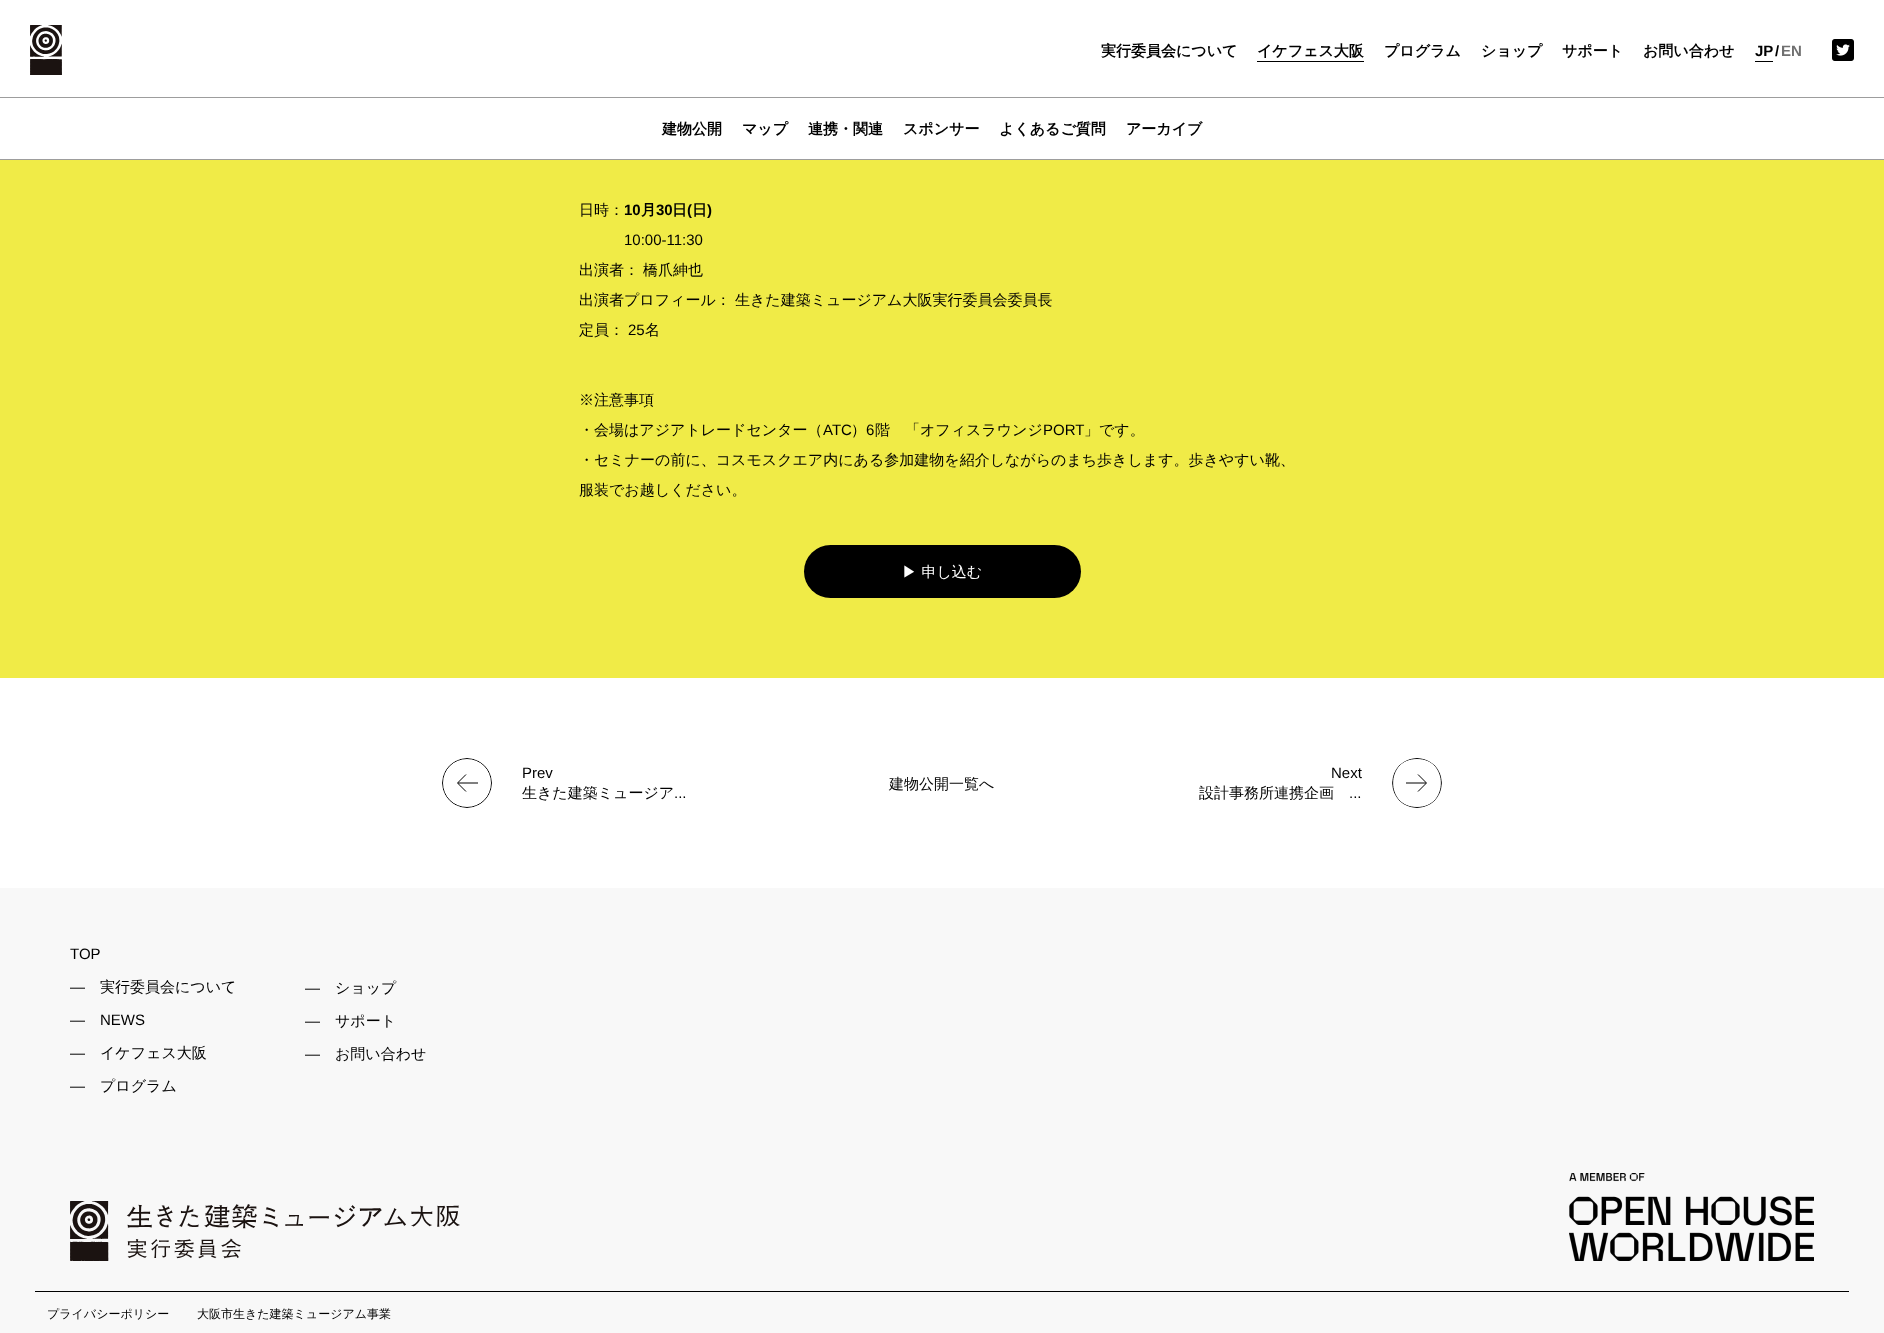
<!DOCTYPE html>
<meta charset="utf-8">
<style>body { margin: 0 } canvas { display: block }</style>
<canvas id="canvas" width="1884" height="1333"></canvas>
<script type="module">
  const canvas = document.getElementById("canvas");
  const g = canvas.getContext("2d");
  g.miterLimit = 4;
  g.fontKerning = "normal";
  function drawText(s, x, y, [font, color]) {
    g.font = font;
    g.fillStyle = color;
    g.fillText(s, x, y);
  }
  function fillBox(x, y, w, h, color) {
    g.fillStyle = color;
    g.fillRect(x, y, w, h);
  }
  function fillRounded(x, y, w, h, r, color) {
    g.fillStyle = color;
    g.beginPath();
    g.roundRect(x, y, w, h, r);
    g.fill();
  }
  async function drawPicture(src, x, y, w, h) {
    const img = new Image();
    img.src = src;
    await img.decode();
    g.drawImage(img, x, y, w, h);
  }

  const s1 = ["bold 15px WenQuanYi Zen Hei", "#000000"];
  const s2 = ["bold 15px Liberation Sans", "#000000"];
  const s3 = ["bold 15px Liberation Sans", "#707070"];
  const s4 = ["500 15px WenQuanYi Zen Hei", "#000000"];
  const s5 = ["15px Liberation Sans", "#000000"];
  const s6 = ["500 15px WenQuanYi Zen Hei", "#FFFFFF"];
  const s7 = ["500 12px WenQuanYi Zen Hei", "#000000"];

  fillBox(0, 0, 1884, 1333, "#F0EB47");
  fillBox(0, 0, 1884, 159, "#FFFFFF");
  await drawPicture("pic1.png", 30, 25, 32, 50);
  drawText("実行委員会について", 1101, 56, s1);
  drawText("イケフェス大阪", 1257, 56, s1);
  fillBox(1257, 61, 107, 1, "#000000");
  drawText("プログラム", 1384, 56, s1);
  drawText("ショップ", 1481, 56, s1);
  drawText("サポート", 1562, 56, s1);
  drawText("お問い合わせ", 1643, 56, s1);
  drawText("JP", 1755, 56, s2);
  fillBox(1755, 61, 18, 1, "#000000");
  drawText("/", 1775, 56, s2);
  drawText("EN", 1781, 56, s3);
  await drawPicture("pic2.png", 1832, 39, 22, 22);
  fillBox(0, 97, 1884, 1, "#9D9D9D");
  fillBox(0, 159, 1884, 1, "#9D9D9D");
  drawText("建物公開", 662, 134, s1);
  drawText("マップ", 742, 134, s1);
  drawText("連携・関連", 808, 134, s1);
  drawText("スポンサー", 903, 134, s1);
  drawText("よくあるご質問", 999, 134, s1);
  drawText("アーカイブ", 1126, 134, s1);
  drawText("日時：", 579, 215, s4);
  drawText("10", 624, 215, s2);
  drawText("月", 641, 215, s1);
  drawText("30", 656, 215, s2);
  drawText("日", 672, 215, s1);
  drawText("(", 687, 215, s2);
  drawText("日", 692, 215, s1);
  drawText(")", 707, 215, s2);
  drawText("10:00-11:30", 624, 245, s5);
  drawText("出演者：", 579, 275, s4);
  drawText("橋爪紳也", 643, 275, s4);
  drawText("出演者プロフィール：", 579, 305, s4);
  drawText("生きた建築ミュージアム大阪実行委員会委員長", 735, 305, s4);
  drawText("定員：", 579, 335, s4);
  drawText("25", 628, 335, s5);
  drawText("名", 645, 335, s4);
  drawText("※注意事項", 579, 405, s4);
  drawText("・会場はアジアトレードセンター（", 579, 435, s4);
  drawText("ATC", 823, 435, s5);
  drawText("）", 851, 435, s4);
  drawText("6", 866, 435, s5);
  drawText("階　「オフィスラウンジ", 875, 435, s4);
  drawText("PORT", 1043, 435, s5);
  drawText("」です。", 1084, 435, s4);
  drawText("・セミナーの前に、コスモスクエア内にある参加建物を紹介しながらのまち歩きします。歩きやすい靴、", 579, 465, s4);
  drawText("服装でお越しください。", 579, 495, s4);
  fillRounded(804, 545, 277, 53, 26.5, "#000000");
  drawText("▶ 申し込む", 902, 577, s6);
  fillBox(0, 678, 1884, 210, "#FFFFFF");
  g.fillStyle = "#F8F8F8";
  g.beginPath();
  g.moveTo(491, 790);
  g.bezierCurveTo(492.5, 785.5, 492.5, 780.5, 491, 776);
  g.closePath();
  g.fill();
  g.save();
  g.beginPath();
  g.roundRect(442, 758, 50, 50, 25);
  g.clip();
  g.beginPath();
  g.arc(467, 783, 24.5, 0, Math.PI * 2);
  g.strokeStyle = "#000000";
  g.stroke();
  g.restore();
  g.beginPath();
  g.moveTo(466, 774.5);
  g.lineTo(457.5, 783);
  g.lineTo(466, 791.5);
  g.moveTo(478, 783);
  g.lineTo(458, 783);
  g.strokeStyle = "#000000";
  g.stroke();
  drawText("Prev", 522, 778, s5);
  drawText("生きた建築ミュージア", 522, 798, s4);
  drawText("...", 674, 798, s5);
  drawText("建物公開一覧へ", 889, 789, s4);
  drawText("Next", 1331, 778, s5);
  drawText("設計事務所連携企画", 1199, 798, s4);
  drawText("...", 1349, 798, s5);
  g.fillStyle = "#F8F8F8";
  g.beginPath();
  g.moveTo(1393, 790);
  g.lineTo(1393, 776);
  g.bezierCurveTo(1391.5, 780.5, 1391.5, 785.5, 1393, 790);
  g.closePath();
  g.fill();
  g.save();
  g.beginPath();
  g.roundRect(1392, 758, 50, 50, 25);
  g.clip();
  g.beginPath();
  g.moveTo(1417, 807.5);
  g.bezierCurveTo(1384.5, 807.5, 1384.5, 758.5, 1417, 758.5);
  g.bezierCurveTo(1449.5, 758.5, 1449.5, 807.5, 1417, 807.5);
  g.closePath();
  g.stroke();
  g.restore();
  g.beginPath();
  g.moveTo(1418, 791.5);
  g.lineTo(1426.5, 783);
  g.lineTo(1418, 774.5);
  g.moveTo(1406, 783);
  g.lineTo(1426, 783);
  g.stroke();
  fillBox(0, 888, 1884, 445, "#F8F8F8");
  fillBox(35, 1291, 1814, 1, "#000000");
  drawText("TOP", 70, 959, s5);
  drawText("—", 70, 992, s5);
  drawText("実行委員会について", 100, 992, s4);
  drawText("—", 305, 993, s5);
  drawText("ショップ", 335, 993, s4);
  drawText("—", 70, 1025, s5);
  drawText("NEWS", 100, 1025, s5);
  drawText("—", 305, 1026, s5);
  drawText("サポート", 335, 1026, s4);
  drawText("—", 70, 1058, s5);
  drawText("イケフェス大阪", 100, 1058, s4);
  drawText("—", 305, 1059, s5);
  drawText("お問い合わせ", 335, 1059, s4);
  drawText("—", 70, 1091, s5);
  drawText("プログラム", 100, 1091, s4);
  await drawPicture("pic3.png", 70, 1201, 390, 60);
  await drawPicture("pic4.png", 1569, 1173, 245, 88);
  drawText("プライバシーポリシー", 47, 1318, s7);
  drawText("大阪市生きた建築ミュージアム事業", 197, 1318, s7);
</script>
